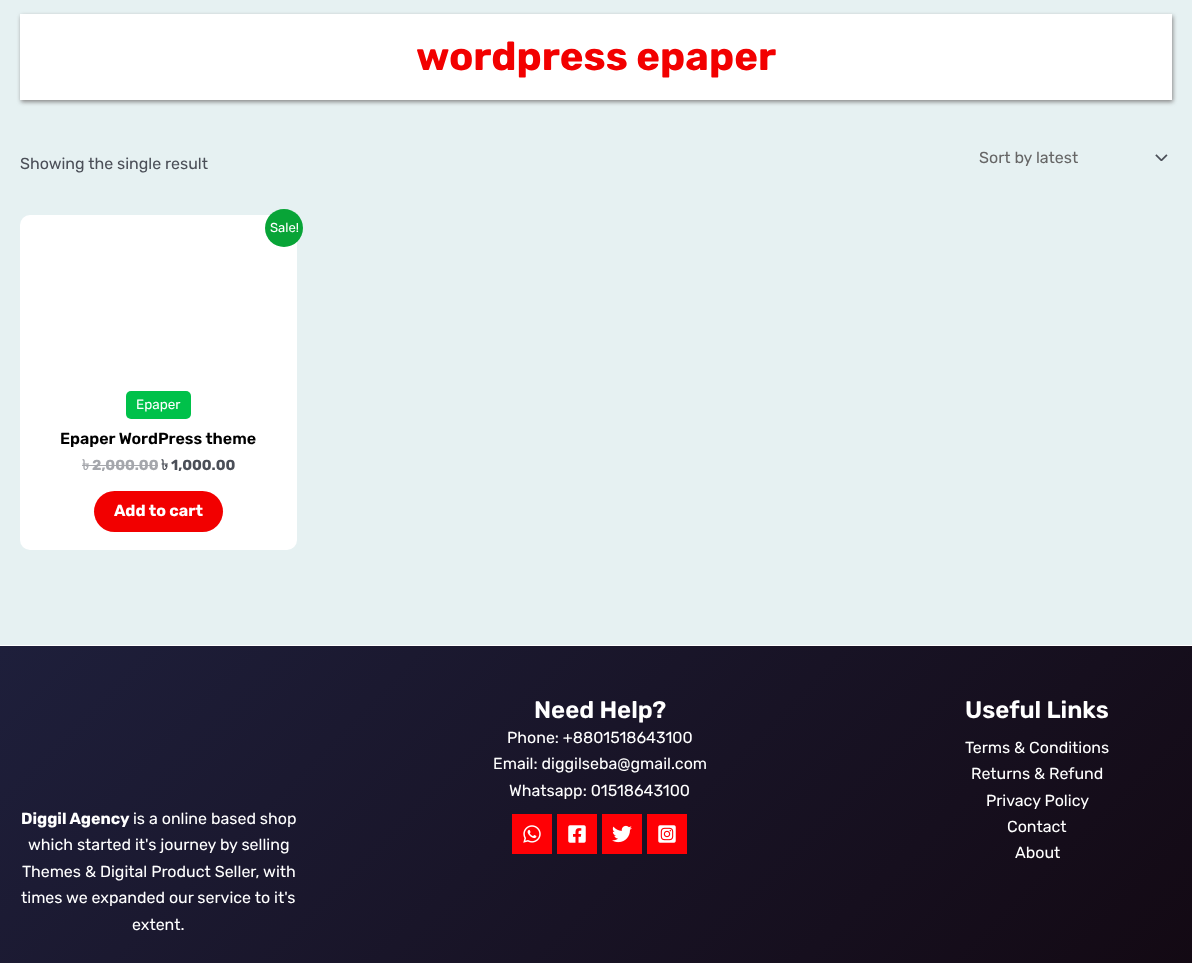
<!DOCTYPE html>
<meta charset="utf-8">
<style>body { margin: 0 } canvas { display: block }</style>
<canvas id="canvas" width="1192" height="963"></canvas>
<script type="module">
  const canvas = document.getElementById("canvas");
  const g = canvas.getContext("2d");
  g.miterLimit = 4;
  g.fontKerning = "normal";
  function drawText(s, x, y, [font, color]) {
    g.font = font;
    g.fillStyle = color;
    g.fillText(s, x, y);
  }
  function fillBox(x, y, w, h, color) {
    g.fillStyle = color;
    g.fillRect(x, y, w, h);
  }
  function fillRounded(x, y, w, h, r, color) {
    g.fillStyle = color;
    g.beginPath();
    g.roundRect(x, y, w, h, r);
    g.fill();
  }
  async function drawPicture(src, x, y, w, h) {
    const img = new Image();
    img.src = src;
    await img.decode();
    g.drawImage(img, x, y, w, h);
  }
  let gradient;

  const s1 = ["bold 40px Rubik", "#F20000"];
  const s2 = ["16px Rubik", "#4B4F58"];
  const s3 = ["16px Rubik", "#666666"];
  const s4 = ["13px Rubik", "#FFFFFF"];
  const s5 = ["13.5px Rubik", "#FFFFFF"];
  const s6 = ["600 16px Rubik", "#000000"];
  const s7 = ["bold 14.5px Lohit Bengali", "#A5A7AC"];
  const s8 = ["bold 14.5px Rubik", "#A5A7AC"];
  const s9 = ["bold 14.5px Lohit Bengali", "#4B4F58"];
  const s10 = ["bold 14.5px Rubik", "#4B4F58"];
  const s11 = ["bold 16px Rubik", "#FFFFFF"];
  const s12 = ["600 24px Rubik", "#FFFFFF"];
  const s13 = ["16px Rubik", "#FFFFFF"];

  fillBox(0, 0, 1192, 963, "#E6F1F2");
  g.fillStyle = "#888888";
  g.filter = "blur(2px)";
  g.beginPath();
  g.rect(21, 16, 1152, 86);
  g.fill();
  g.filter = "none";
  fillBox(20, 14, 1152, 86, "#FFFFFF");
  drawText("wordpress epaper", 416, 70, s1);
  drawText("Showing the single result", 20, 169, s2);
  await drawPicture("pic1.png", 1155, 154, 13, 7);
  drawText("Sort by latest", 979, 163, s3);
  fillRounded(20, 215, 277, 335, 10, "#FFFFFF");
  g.fillStyle = "#08A437";
  g.beginPath();
  g.arc(284, 228, 19, 0, Math.PI * 2);
  g.fill();
  drawText("Sale!", 270, 232, s4);
  fillRounded(126, 391, 65, 28, 5, "#00C14A");
  drawText("Epaper", 136, 409, s5);
  drawText("Epaper WordPress theme", 60, 444, s6);
  drawText("৳", 82, 470, s7);
  drawText("2,000.00", 92, 470, s8);
  fillBox(82, 465, 10, 1, "#A5A7AC");
  fillBox(92, 465, 66, 1, "#A5A7AC");
  drawText("৳", 161, 470, s9);
  drawText("1,000.00", 171, 470, s10);
  fillRounded(94, 491, 129, 41, 20.5, "#F20000");
  drawText("Add to cart", 114, 516, s11);
  fillBox(0, 645, 1192, 1, "#FFFFFF");
  gradient = g.createLinearGradient(212, 434, 980, 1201);
  gradient.addColorStop(0, "#1E1F3B");
  gradient.addColorStop(1, "#130913");
  g.fillStyle = gradient;
  g.fillRect(0, 646, 1192, 317);
  drawText("Need Help?", 534, 718, s12);
  drawText("Phone: +8801518643100", 507, 743, s13);
  drawText("Email: diggilseba@gmail.com", 493, 769, s13);
  drawText("Whatsapp: 01518643100", 509, 796, s13);
  fillBox(512, 814, 40, 40, "#FF0005");
  await drawPicture("pic2.png", 523, 825, 18, 18);
  fillBox(557, 814, 40, 40, "#FF0005");
  await drawPicture("pic3.png", 568, 825, 18, 18);
  fillBox(602, 814, 40, 40, "#FF0005");
  await drawPicture("pic4.png", 612, 825, 20, 18);
  fillBox(647, 814, 40, 40, "#FF0005");
  await drawPicture("pic5.png", 658, 825, 18, 18);
  drawText("Useful Links", 965, 718, s12);
  drawText("Terms & Conditions", 965, 753, s13);
  drawText("Returns & Refund", 971, 779, s13);
  drawText("Privacy Policy", 986, 806, s13);
  drawText("Contact", 1007, 832, s13);
  drawText("About", 1015, 858, s13);
  drawText("Diggil Agency", 21, 824, s11);
  drawText("is a online based shop", 133, 824, s13);
  drawText("which started it's journey by selling", 28, 850, s13);
  drawText("Themes & Digital Product Seller, with", 22, 877, s13);
  drawText("times we expanded our service to it's", 21, 903, s13);
  drawText("extent.", 132, 930, s13);
</script>
